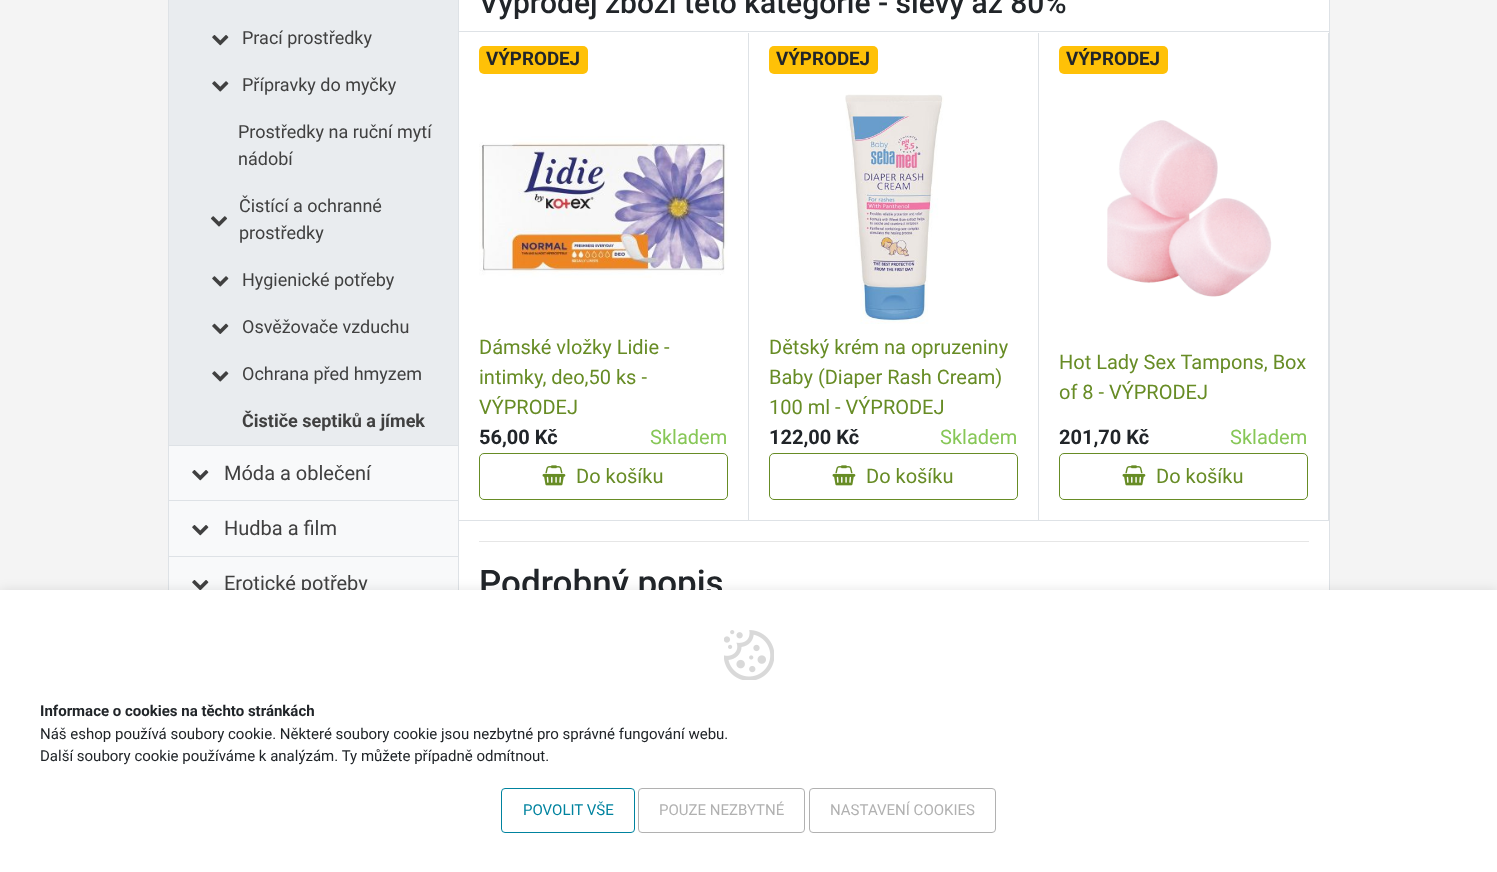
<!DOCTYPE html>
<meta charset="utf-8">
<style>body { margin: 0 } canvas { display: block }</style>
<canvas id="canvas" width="1497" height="872"></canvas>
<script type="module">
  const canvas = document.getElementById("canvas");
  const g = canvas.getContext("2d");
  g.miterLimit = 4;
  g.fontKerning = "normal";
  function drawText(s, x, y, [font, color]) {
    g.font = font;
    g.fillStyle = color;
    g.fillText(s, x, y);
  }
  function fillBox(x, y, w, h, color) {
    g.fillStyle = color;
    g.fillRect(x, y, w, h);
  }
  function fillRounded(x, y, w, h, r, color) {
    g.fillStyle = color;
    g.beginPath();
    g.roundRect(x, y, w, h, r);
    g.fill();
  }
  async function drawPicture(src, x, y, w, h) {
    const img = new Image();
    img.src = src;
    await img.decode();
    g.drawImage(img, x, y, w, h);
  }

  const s1 = ["18px Roboto", "#404040"];
  const s2 = ["bold 18px Roboto", "#404040"];
  const s3 = ["20px Roboto", "#404040"];
  const s4 = ["500 30px Roboto", "#212529"];
  const s5 = ["bold 18.75px Roboto", "#212529"];
  const s6 = ["20px Roboto", "#678C25"];
  const s7 = ["bold 20px Roboto", "#212529"];
  const s8 = ["20px Roboto", "#87C757"];
  const s9 = ["500 35px Roboto", "#212529"];
  const s10 = ["bold 15px Roboto", "#212529"];
  const s11 = ["15px Roboto", "#212529"];
  const s12 = ["15px Roboto", "#00839F"];
  const s13 = ["15px Roboto", "#B1B1B1"];

  fillBox(0, 0, 1497, 872, "#F4F4F4");
  fillBox(459, 0, 870, 590, "#FFFFFF");
  g.strokeStyle = "#DEE2E6";
  g.strokeRect(168.5, -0.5, 1161, 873);
  fillBox(458, 0, 1, 590, "#DEE2E6");
  fillBox(169, 446, 289, 144, "#F8F9FA");
  fillBox(169, 0, 289, 445, "#E9ECEF");
  fillBox(169, 445, 289, 1, "#DEE2E6");
  await drawPicture("pic1.png", 212, 35, 17, 11);
  drawText("Prací prostředky", 242, 44, s1);
  await drawPicture("pic2.png", 212, 81, 17, 11);
  drawText("Přípravky do myčky", 242, 91, s1);
  drawText("Prostředky na ruční mytí", 238, 138, s1);
  drawText("nádobí", 238, 165, s1);
  await drawPicture("pic3.png", 210, 216, 18, 11);
  drawText("Čistící a ochranné", 239, 212, s1);
  drawText("prostředky", 239, 239, s1);
  await drawPicture("pic2.png", 212, 276, 17, 11);
  drawText("Hygienické potřeby", 242, 286, s1);
  await drawPicture("pic4.png", 212, 323, 17, 11);
  drawText("Osvěžovače vzduchu", 242, 333, s1);
  await drawPicture("pic2.png", 212, 371, 17, 11);
  drawText("Ochrana před hmyzem", 242, 380, s1);
  drawText("Čističe septiků a jímek", 242, 427, s2);
  fillBox(169, 500, 289, 1, "#DEE2E6");
  await drawPicture("pic5.png", 192, 470, 17, 11);
  drawText("Móda a oblečení", 224, 480, s3);
  fillBox(169, 556, 289, 1, "#DEE2E6");
  await drawPicture("pic5.png", 192, 525, 17, 11);
  drawText("Hudba a film", 224, 535, s3);
  await drawPicture("pic6.png", 192, 580, 17, 10);
  drawText("Erotické potřeby", 224, 590, s3);
  drawText("Výprodej zboží této kategorie - slevy až 80%", 479, 13, s4);
  g.strokeRect(458.5, 31.5, 871, 489);
  fillBox(748, 33, 1, 487, "#DEE2E6");
  fillRounded(479, 46, 109, 28, 5, "#FFC107");
  drawText("VÝPRODEJ", 486, 65, s5);
  await drawPicture("pic7.png", 479, 136, 249, 142);
  drawText("Dámské vložky Lidie -", 479, 354, s6);
  drawText("intimky, deo,50 ks -", 479, 384, s6);
  drawText("VÝPRODEJ", 479, 414, s6);
  drawText("56,00 Kč", 479, 444, s7);
  drawText("Skladem", 650, 444, s8);
  g.beginPath();
  g.roundRect(479.5, 453.5, 248, 46, 4.5);
  g.strokeStyle = "#678C25";
  g.stroke();
  await drawPicture("pic8.png", 542, 465, 24, 21);
  drawText("Do košíku", 576, 483, s6);
  fillBox(1038, 33, 1, 487, "#DEE2E6");
  fillRounded(769, 46, 109, 28, 5, "#FFC107");
  drawText("VÝPRODEJ", 776, 65, s5);
  await drawPicture("pic9.png", 845, 94, 99, 230);
  drawText("Dětský krém na opruzeniny", 769, 354, s6);
  drawText("Baby (Diaper Rash Cream)", 769, 384, s6);
  drawText("100 ml - VÝPRODEJ", 769, 414, s6);
  drawText("122,00 Kč", 769, 444, s7);
  drawText("Skladem", 940, 444, s8);
  g.beginPath();
  g.roundRect(769.5, 453.5, 248, 46, 4.5);
  g.stroke();
  await drawPicture("pic8.png", 832, 465, 24, 21);
  drawText("Do košíku", 866, 483, s6);
  fillBox(1328, 33, 1, 487, "#DEE2E6");
  fillRounded(1059, 46, 109, 28, 5, "#FFC107");
  drawText("VÝPRODEJ", 1066, 65, s5);
  await drawPicture("pic10.png", 1107, 120, 165, 177);
  drawText("Hot Lady Sex Tampons, Box", 1059, 369, s6);
  drawText("of 8 - VÝPRODEJ", 1059, 399, s6);
  drawText("201,70 Kč", 1059, 444, s7);
  drawText("Skladem", 1230, 444, s8);
  g.beginPath();
  g.roundRect(1059.5, 453.5, 248, 46, 4.5);
  g.stroke();
  await drawPicture("pic8.png", 1122, 465, 24, 21);
  drawText("Do košíku", 1156, 483, s6);
  fillBox(479, 541, 830, 1, "#E6E6E6");
  drawText("Podrobný popis", 479, 595, s9);
  g.fillStyle = "rgba(0, 0, 0, 0.1)";
  g.filter = "blur(6px)";
  g.beginPath();
  g.rect(0, 590, 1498, 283);
  g.fill();
  g.filter = "none";
  fillBox(0, 590, 1497, 282, "#FFFFFF");
  await drawPicture("pic11.png", 724, 630, 50, 50);
  drawText("Informace o cookies na těchto stránkách", 40, 716, s10);
  drawText("Náš eshop používá soubory cookie. Některé soubory cookie jsou nezbytné pro správné fungování webu.", 40, 739, s11);
  drawText("Další soubory cookie používáme k analýzám. Ty můžete případně odmítnout.", 40, 761, s11);
  g.beginPath();
  g.roundRect(501.5, 788.5, 133, 44, 3.5);
  g.strokeStyle = "#00839F";
  g.stroke();
  drawText("POVOLIT VŠE", 523, 815, s12);
  g.beginPath();
  g.roundRect(638.5, 788.5, 166, 44, 3.5);
  g.strokeStyle = "#B1B1B1";
  g.stroke();
  drawText("POUZE NEZBYTNÉ", 659, 815, s13);
  g.beginPath();
  g.roundRect(809.5, 788.5, 186, 44, 3.5);
  g.stroke();
  drawText("NASTAVENÍ COOKIES", 830, 815, s13);
</script>
